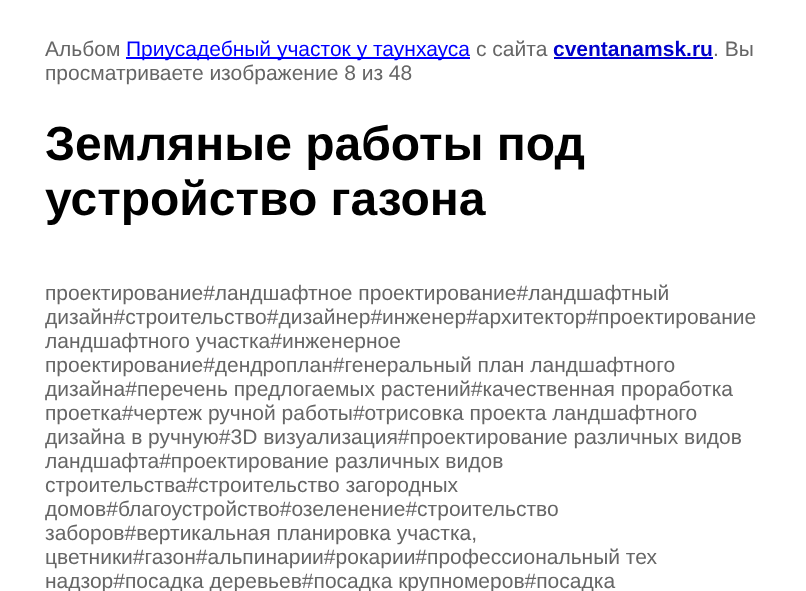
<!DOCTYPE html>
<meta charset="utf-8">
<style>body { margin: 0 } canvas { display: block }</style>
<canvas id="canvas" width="806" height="591"></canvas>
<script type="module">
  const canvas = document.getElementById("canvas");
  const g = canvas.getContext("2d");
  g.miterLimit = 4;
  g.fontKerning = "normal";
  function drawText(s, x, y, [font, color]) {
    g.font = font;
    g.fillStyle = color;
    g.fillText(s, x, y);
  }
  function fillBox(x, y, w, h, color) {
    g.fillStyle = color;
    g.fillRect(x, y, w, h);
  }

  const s1 = ["21px Liberation Sans", "#666666"];
  const s2 = ["21px Liberation Sans", "#0000FF"];
  const s3 = ["bold 21px Liberation Sans", "#0000CC"];
  const s4 = ["bold 48px Liberation Sans", "#000000"];

  fillBox(0, 0, 806, 591, "#FFFFFF");
  drawText("Альбом", 45, 56, s1);
  fillBox(126, 57, 344, 2, "#0000FF");
  drawText("Приусадебный участок у таунхауса", 126, 56, s2);
  drawText("с сайта", 476, 56, s1);
  drawText("cventanamsk.ru", 553, 56, s3);
  fillBox(554, 57, 159, 2, "#0000CC");
  drawText(". Вы", 713, 56, s1);
  drawText("просматриваете изображение 8 из 48", 45, 80, s1);
  drawText("Земляные работы под", 45, 160, s4);
  drawText("устройство газона", 45, 215, s4);
  drawText("проектирование#ландшафтное проектирование#ландшафтный", 45, 300, s1);
  drawText("дизайн#строительство#дизайнер#инженер#архитектор#проектирование", 45, 324, s1);
  drawText("ландшафтного участка#инженерное", 45, 348, s1);
  drawText("проектирование#дендроплан#генеральный план ландшафтного", 45, 372, s1);
  drawText("дизайна#перечень предлогаемых растений#качественная проработка", 45, 396, s1);
  drawText("проетка#чертеж ручной работы#отрисовка проекта ландшафтного", 45, 420, s1);
  drawText("дизайна в ручную#3D визуализация#проектирование различных видов", 45, 444, s1);
  drawText("ландшафта#проектирование различных видов", 45, 468, s1);
  drawText("строительства#строительство загородных", 45, 492, s1);
  drawText("домов#благоустройство#озеленение#строительство", 45, 516, s1);
  drawText("заборов#вертикальная планировка участка,", 45, 540, s1);
  drawText("цветники#газон#альпинарии#рокарии#профессиональный тех", 45, 564, s1);
  drawText("надзор#посадка деревьев#посадка крупномеров#посадка", 45, 588, s1);
</script>
